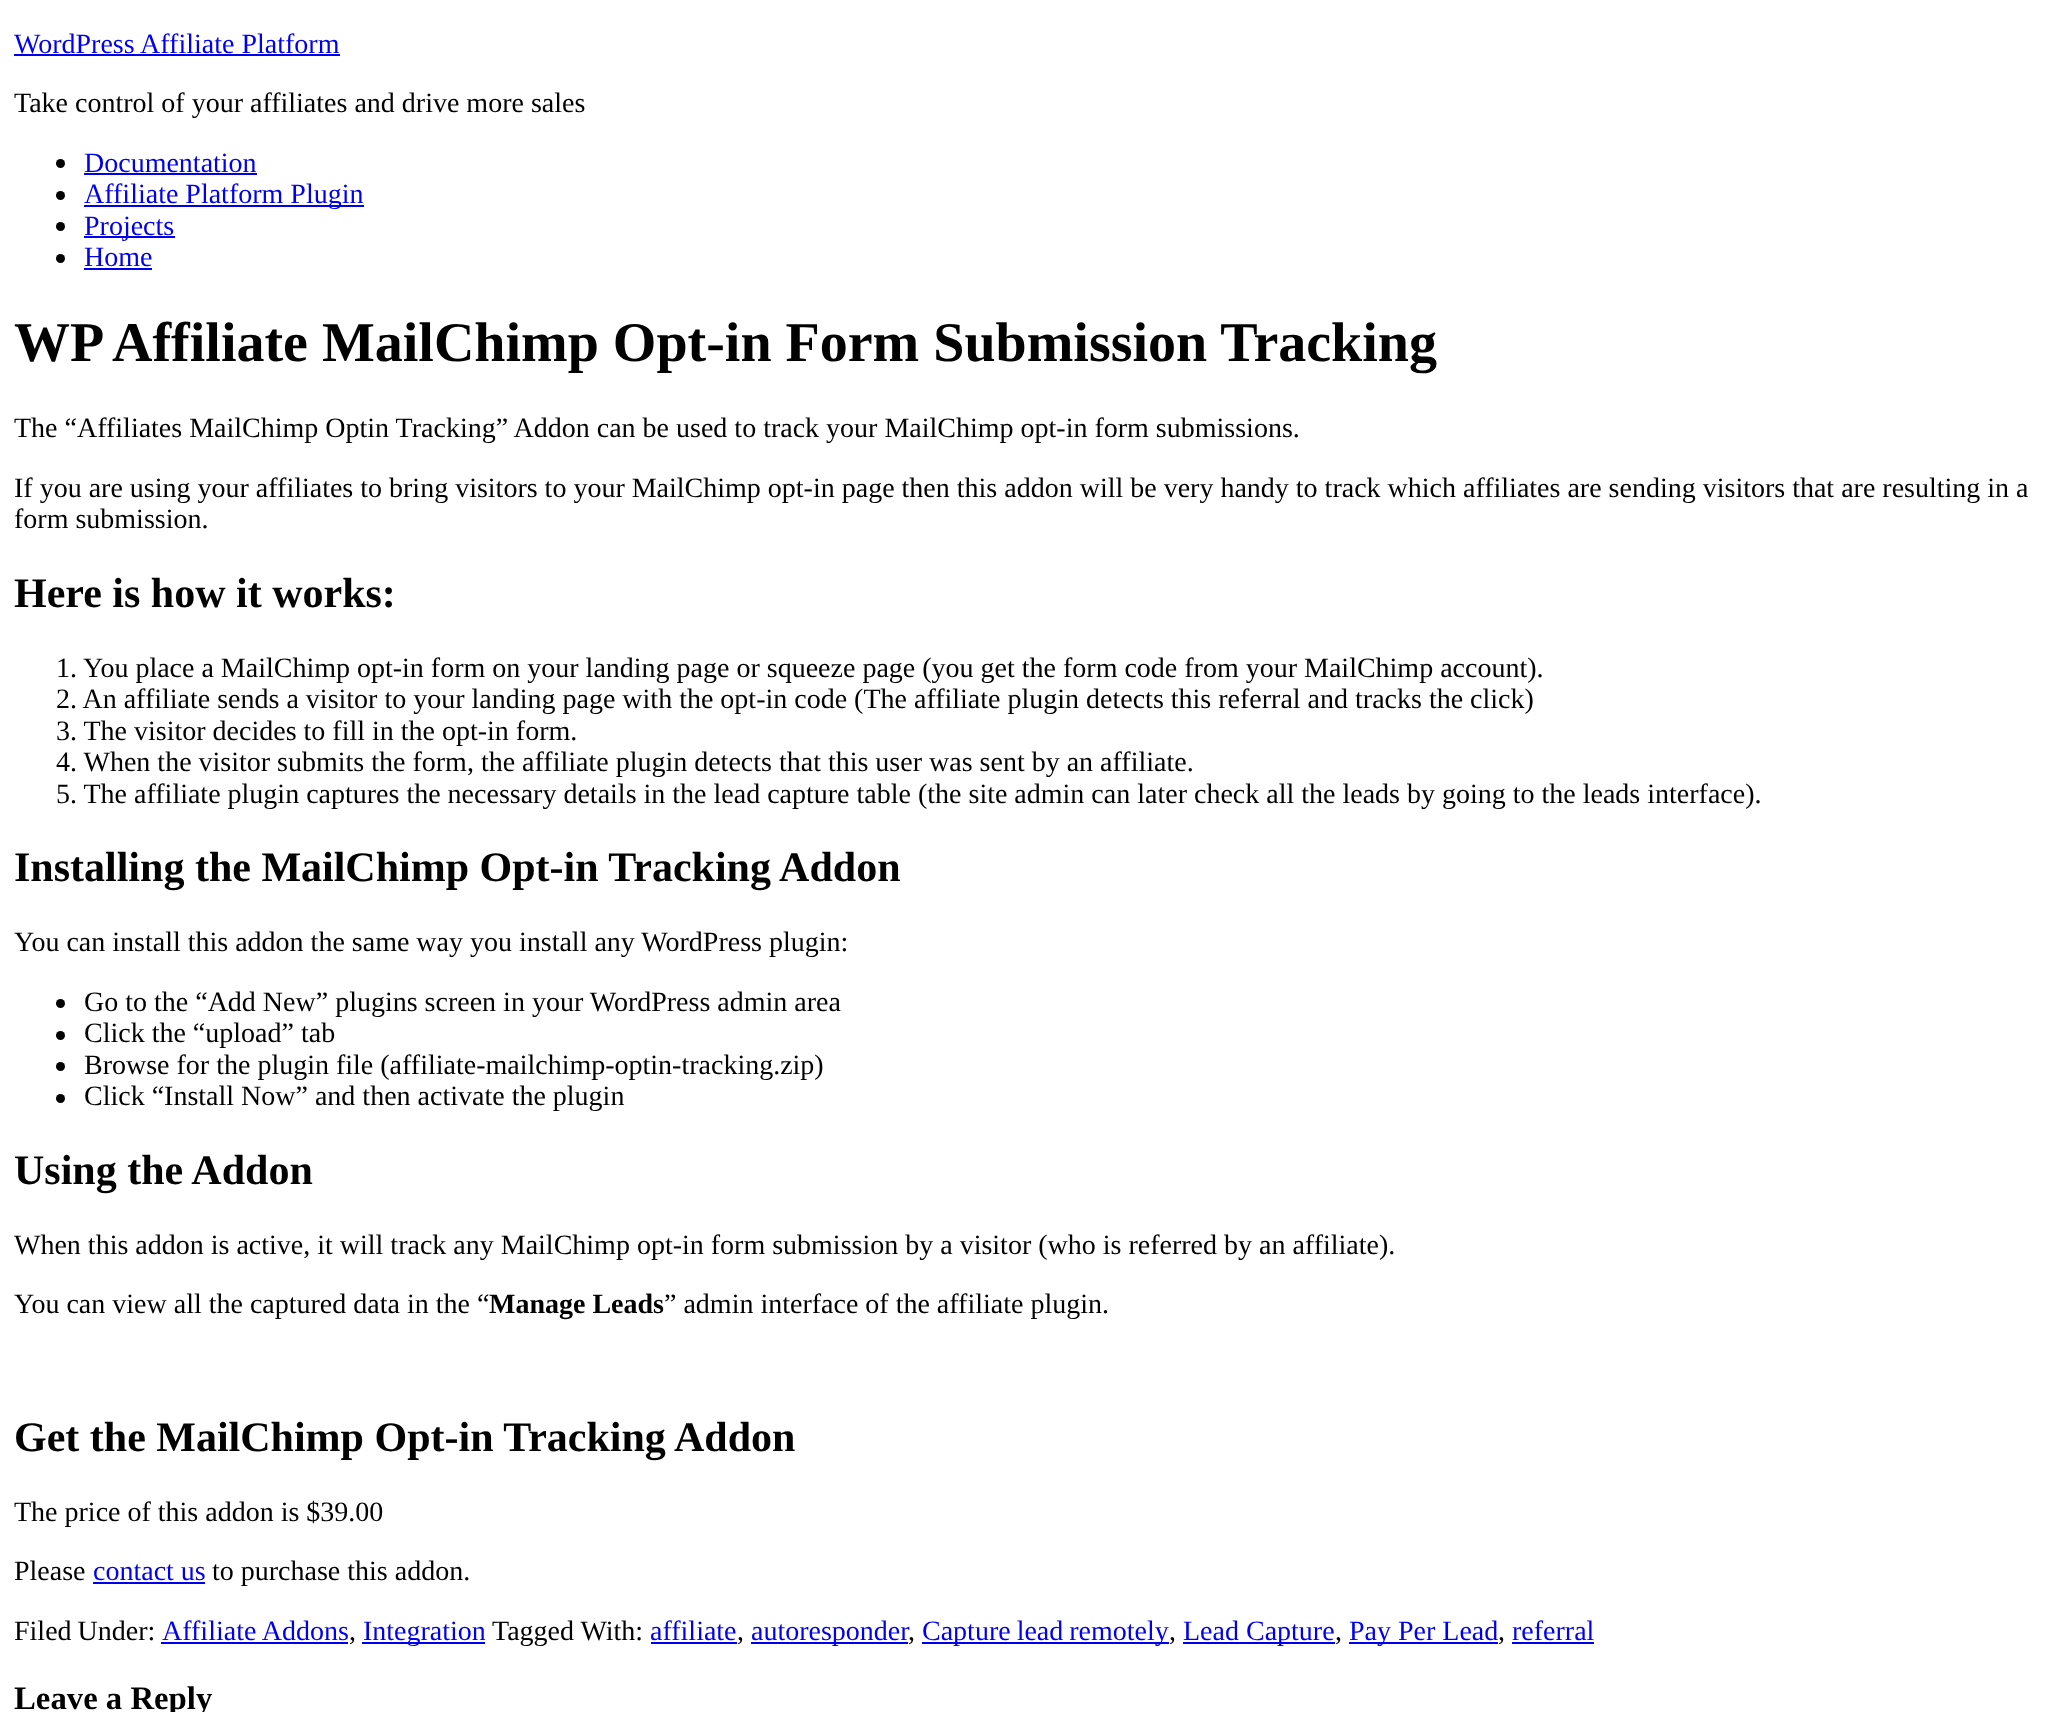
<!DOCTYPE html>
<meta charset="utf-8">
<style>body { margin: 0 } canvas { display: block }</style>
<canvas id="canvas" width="2056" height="1712"></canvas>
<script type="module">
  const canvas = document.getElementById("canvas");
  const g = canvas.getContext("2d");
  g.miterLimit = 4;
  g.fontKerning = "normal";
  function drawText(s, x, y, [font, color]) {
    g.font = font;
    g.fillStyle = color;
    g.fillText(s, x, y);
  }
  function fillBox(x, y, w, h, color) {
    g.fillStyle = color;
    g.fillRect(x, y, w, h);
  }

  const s1 = ["28px Liberation Serif", "#0000EE"];
  const s2 = ["28px Liberation Serif", "#000000"];
  const s3 = ["bold 56px Liberation Serif", "#000000"];
  const s4 = ["bold 42px Liberation Serif", "#000000"];
  const s5 = ["bold 28px Liberation Serif", "#000000"];
  const s6 = ["bold 32.75px Liberation Serif", "#000000"];

  fillBox(0, 0, 2056, 1712, "#FFFFFF");
  drawText("WordPress Affiliate Platform", 14, 53, s1);
  fillBox(14, 54, 326, 2, "#0000EE");
  drawText("Take control of your affiliates and drive more sales", 14, 112, s2);
  g.beginPath();
  g.arc(60.5, 163.5, 4.5, 0, Math.PI * 2);
  g.fill();
  drawText("Documentation", 84, 172, s1);
  fillBox(84, 173, 173, 2, "#0000EE");
  g.fillStyle = "#000000";
  g.beginPath();
  g.arc(60.5, 195.5, 4.5, 0, Math.PI * 2);
  g.fill();
  fillBox(84, 205, 280, 2, "#0000EE");
  drawText("Affiliate Platform Plugin", 84, 203, s1);
  g.fillStyle = "#000000";
  g.beginPath();
  g.arc(60.5, 226.5, 4.5, 0, Math.PI * 2);
  g.fill();
  fillBox(84, 236, 91, 2, "#0000EE");
  drawText("Projects", 84, 235, s1);
  g.fillStyle = "#000000";
  g.beginPath();
  g.arc(60.5, 258.5, 4.5, 0, Math.PI * 2);
  g.fill();
  drawText("Home", 84, 266, s1);
  fillBox(84, 268, 68, 2, "#0000EE");
  drawText("WP Affiliate MailChimp Opt-in Form Submission Tracking", 14, 361, s3);
  drawText("The “Affiliates MailChimp Optin Tracking” Addon can be used to track your MailChimp opt-in form submissions.", 14, 437, s2);
  drawText("If you are using your affiliates to bring visitors to your MailChimp opt-in page then this addon will be very handy to track which affiliates are sending visitors that are resulting in a", 14, 497, s2);
  drawText("form submission.", 14, 528, s2);
  drawText("Here is how it works:", 14, 607, s4);
  drawText("1. You place a MailChimp opt-in form on your landing page or squeeze page (you get the form code from your MailChimp account).", 56, 677, s2);
  drawText("2. An affiliate sends a visitor to your landing page with the opt-in code (The affiliate plugin detects this referral and tracks the click)", 56, 708, s2);
  drawText("3. The visitor decides to fill in the opt-in form.", 56, 740, s2);
  drawText("4. When the visitor submits the form, the affiliate plugin detects that this user was sent by an affiliate.", 56, 771, s2);
  drawText("5. The affiliate plugin captures the necessary details in the lead capture table (the site admin can later check all the leads by going to the leads interface).", 56, 803, s2);
  drawText("Installing the MailChimp Opt-in Tracking Addon", 14, 881, s4);
  drawText("You can install this addon the same way you install any WordPress plugin:", 14, 951, s2);
  g.beginPath();
  g.arc(60.5, 1003.5, 4.5, 0, Math.PI * 2);
  g.fill();
  drawText("Go to the “Add New” plugins screen in your WordPress admin area", 84, 1011, s2);
  g.beginPath();
  g.arc(60.5, 1035.5, 4.5, 0, Math.PI * 2);
  g.fill();
  drawText("Click the “upload” tab", 84, 1042, s2);
  g.beginPath();
  g.arc(60.5, 1066.5, 4.5, 0, Math.PI * 2);
  g.fill();
  drawText("Browse for the plugin file (affiliate-mailchimp-optin-tracking.zip)", 84, 1074, s2);
  g.beginPath();
  g.arc(60.5, 1098.5, 4.5, 0, Math.PI * 2);
  g.fill();
  drawText("Click “Install Now” and then activate the plugin", 84, 1105, s2);
  drawText("Using the Addon", 14, 1184, s4);
  drawText("When this addon is active, it will track any MailChimp opt-in form submission by a visitor (who is referred by an affiliate).", 14, 1254, s2);
  drawText("You can view all the captured data in the “", 14, 1313, s2);
  drawText("Manage Leads", 489, 1313, s5);
  drawText("” admin interface of the affiliate plugin.", 664, 1313, s2);
  drawText("Get the MailChimp Opt-in Tracking Addon", 14, 1451, s4);
  drawText("The price of this addon is $39.00", 14, 1521, s2);
  drawText("Please", 14, 1580, s2);
  drawText("contact us", 93, 1580, s1);
  fillBox(93, 1582, 112, 2, "#0000EE");
  drawText("to purchase this addon.", 212, 1580, s2);
  g.wordSpacing = "-1px";
  drawText("Filed Under:", 14, 1640, s2);
  g.wordSpacing = "0px";
  drawText("Affiliate Addons", 162, 1640, s1);
  drawText(",", 349, 1640, s2);
  fillBox(161, 1642, 187, 2, "#0000EE");
  fillBox(362, 1642, 123, 2, "#0000EE");
  drawText("Integration", 363, 1640, s1);
  drawText("Tagged With:", 492, 1640, s2);
  drawText("affiliate", 650, 1640, s1);
  drawText(",", 737, 1640, s2);
  fillBox(651, 1642, 86, 2, "#0000EE");
  fillBox(751, 1642, 157, 2, "#0000EE");
  drawText("autoresponder", 751, 1640, s1);
  drawText(",", 908, 1640, s2);
  fillBox(922, 1642, 247, 2, "#0000EE");
  g.wordSpacing = "-1px";
  drawText("Capture lead remotely", 922, 1640, s1);
  g.wordSpacing = "0px";
  drawText(",", 1169, 1640, s2);
  fillBox(1183, 1642, 152, 2, "#0000EE");
  drawText("Lead Capture", 1183, 1640, s1);
  drawText(",", 1335, 1640, s2);
  fillBox(1349, 1642, 149, 2, "#0000EE");
  drawText("Pay Per Lead", 1349, 1640, s1);
  drawText(",", 1498, 1640, s2);
  fillBox(1512, 1642, 82, 2, "#0000EE");
  drawText("referral", 1512, 1640, s1);
  drawText("Leave a Reply", 14, 1709, s6);
</script>
